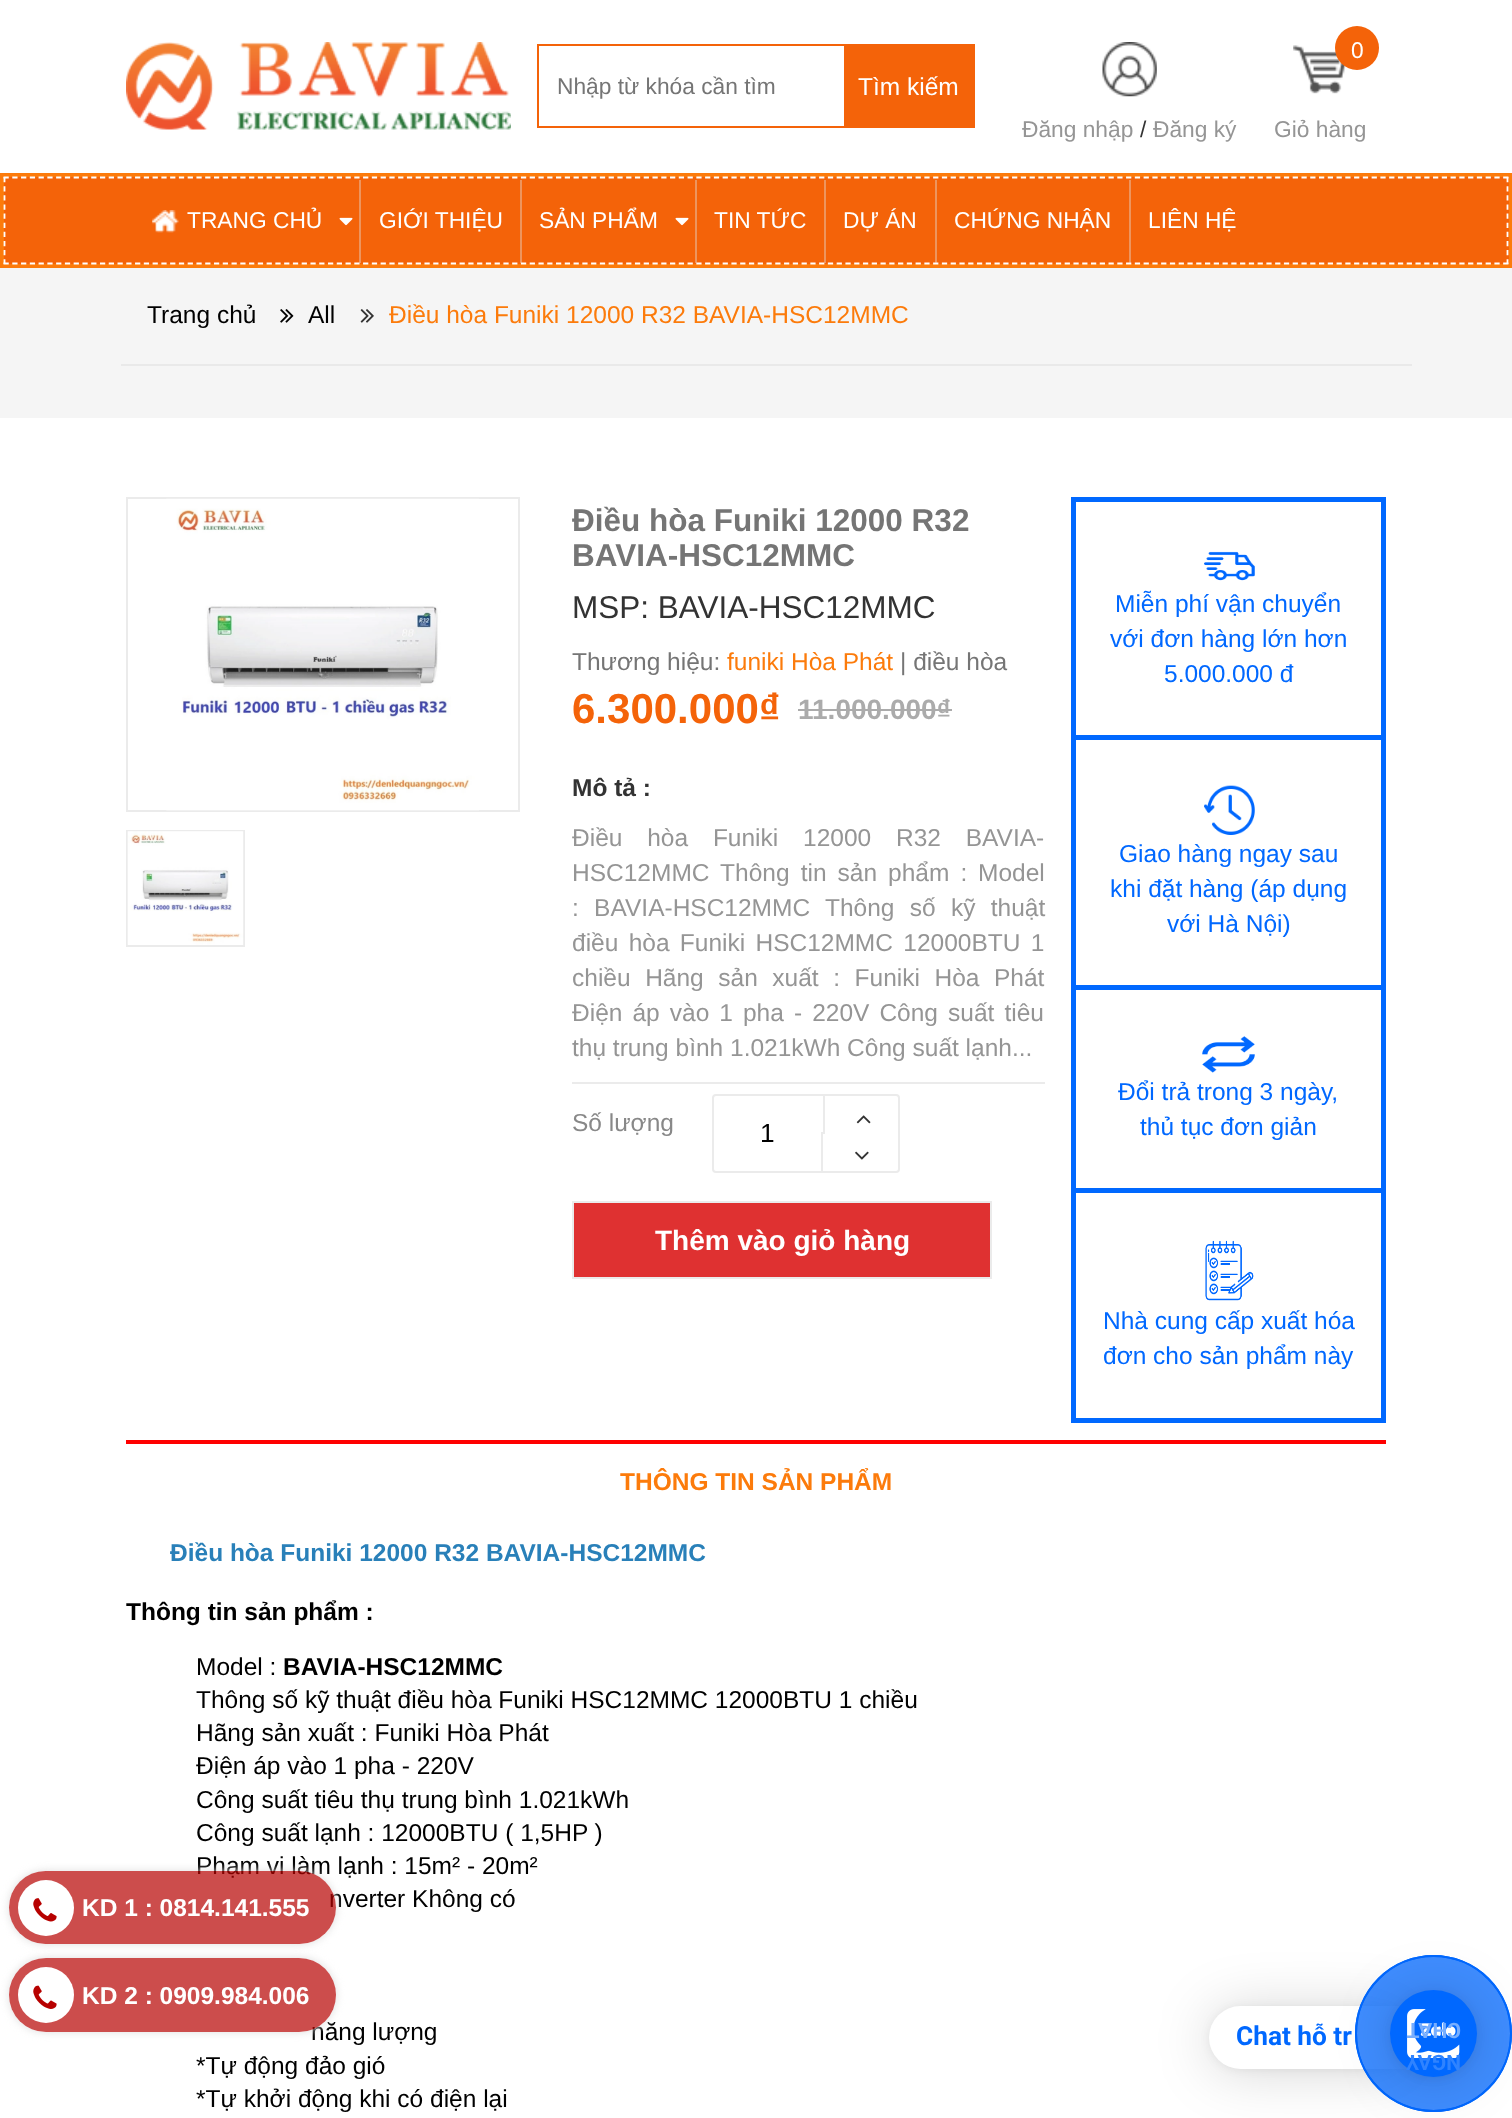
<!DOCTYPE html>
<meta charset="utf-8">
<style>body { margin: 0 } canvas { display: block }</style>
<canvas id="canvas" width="1512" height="2118"></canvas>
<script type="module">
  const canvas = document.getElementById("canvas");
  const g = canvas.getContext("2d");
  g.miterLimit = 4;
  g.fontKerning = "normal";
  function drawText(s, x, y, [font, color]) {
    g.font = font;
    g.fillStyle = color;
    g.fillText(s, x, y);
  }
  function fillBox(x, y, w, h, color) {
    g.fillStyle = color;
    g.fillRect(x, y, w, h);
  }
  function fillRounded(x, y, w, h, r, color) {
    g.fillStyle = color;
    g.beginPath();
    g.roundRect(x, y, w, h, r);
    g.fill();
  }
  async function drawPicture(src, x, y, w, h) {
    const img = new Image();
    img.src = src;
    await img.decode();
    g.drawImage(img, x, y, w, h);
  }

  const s1 = ["22.75px Liberation Sans", "#757575"];
  const s2 = ["24.5px Liberation Sans", "#FFFFFF"];
  const s3 = ["22.75px Liberation Sans", "#959595"];
  const s4 = ["22.75px Liberation Sans", "#333333"];
  const s5 = ["22.75px Liberation Sans", "#FFFFFF"];
  const s6 = ["24.5px Liberation Sans", "#000000"];
  const s7 = ["24.5px Liberation Sans", "#FC7B0B"];
  const s8 = ["bold 31.5px Liberation Sans", "#757575"];
  const s9 = ["31.5px Liberation Sans", "#333333"];
  const s10 = ["24.5px Liberation Sans", "#757575"];
  const s11 = ["bold 42px Liberation Sans", "#F46309"];
  const s12 = ["bold 28px Liberation Sans", "#ABABAB"];
  const s13 = ["bold 24.5px Liberation Sans", "#333333"];
  const s14 = ["24.5px Liberation Sans", "#959595"];
  const s15 = ["24.5px Liberation Sans", "#888888"];
  const s16 = ["26.25px Liberation Sans", "#000000"];
  const s17 = ["bold 28px Liberation Sans", "#FFFFFF"];
  const s18 = ["24.5px Liberation Sans", "#0068FF"];
  const s19 = ["bold 24.5px Liberation Sans", "#FC7B0B"];
  const s20 = ["bold 24.5px Liberation Sans", "#2980B9"];
  const s21 = ["bold 24.5px Liberation Sans", "#000000"];
  const s22 = ["bold 24.5px Liberation Sans", "#FFFFFF"];
  const s23 = ["bold 26.25px Roboto", "#0068FF"];

  fillBox(0, 0, 1512, 2118, "#FFFFFF");
  await drawPicture("pic1.png", 126, 42, 385, 88);
  g.strokeStyle = "#F46309";
  g.lineWidth = 2;
  g.strokeRect(538, 45, 436, 82);
  drawText("Nhập từ khóa cần tìm", 557, 94, s1);
  fillBox(844, 46, 129, 80, "#F46309");
  drawText("Tìm kiếm", 858, 95, s2);
  await drawPicture("pic2.png", 1102, 42, 55, 55);
  drawText("Đăng nhập", 1022, 137, s3);
  drawText("/", 1140, 137, s4);
  drawText("Đăng ký", 1153, 137, s3);
  await drawPicture("pic3.png", 1293, 45, 53, 49);
  g.fillStyle = "#F46309";
  g.beginPath();
  g.arc(1357, 48, 22, 0, Math.PI * 2);
  g.fill();
  drawText("0", 1351, 58, s5);
  drawText("Giỏ hàng", 1274, 137, s3);
  fillBox(0, 173, 1512, 95, "#FC7B0B");
  fillBox(4, 177, 1505, 87, "#F46309");
  g.beginPath();
  g.moveTo(3.5, 177.5);
  g.lineTo(1508.5, 177.5);
  g.strokeStyle = "#FFFFFF";
  g.lineWidth = 1.8;
  g.setLineDash([5.25, 3.52]);
  g.stroke();
  g.beginPath();
  g.moveTo(1507.5, 177);
  g.lineTo(1507.5, 264);
  g.setLineDash([5.25, 3.89]);
  g.stroke();
  g.beginPath();
  g.moveTo(3.5, 263.5);
  g.lineTo(1508.5, 263.5);
  g.setLineDash([5.25, 3.52]);
  g.stroke();
  g.beginPath();
  g.moveTo(4.5, 177);
  g.lineTo(4.5, 264);
  g.setLineDash([5.25, 3.89]);
  g.stroke();
  fillBox(359, 180, 2, 83, "rgba(226, 228, 230, 0.39)");
  await drawPicture("pic4.png", 152, 210, 27, 23);
  drawText("TRANG CHỦ", 187, 228, s5);
  await drawPicture("pic5.png", 339, 217, 14, 9);
  fillBox(520, 180, 2, 83, "rgba(226, 228, 230, 0.39)");
  drawText("GIỚI THIỆU", 379, 228, s5);
  fillBox(695, 180, 2, 83, "rgba(226, 228, 230, 0.39)");
  drawText("SẢN PHẨM", 539, 228, s5);
  await drawPicture("pic5.png", 675, 217, 14, 9);
  fillBox(824, 180, 2, 83, "rgba(226, 228, 230, 0.39)");
  drawText("TIN TỨC", 714, 228, s5);
  fillBox(935, 180, 2, 83, "rgba(226, 228, 230, 0.39)");
  drawText("DỰ ÁN", 843, 228, s5);
  fillBox(1129, 180, 2, 83, "rgba(226, 228, 230, 0.39)");
  drawText("CHỨNG NHẬN", 954, 228, s5);
  drawText("LIÊN HỆ", 1148, 228, s5);
  fillBox(0, 268, 1512, 150, "#F5F5F5");
  fillBox(121, 364, 1291, 2, "#E9E9E9");
  drawText("Trang chủ", 147, 323, s6);
  await drawPicture("pic6.png", 280, 309, 14, 14);
  drawText("All", 308, 323, s6);
  await drawPicture("pic7.png", 360, 309, 14, 14);
  drawText("Điều hòa Funiki 12000 R32 BAVIA-HSC12MMC", 389, 323, s7);
  g.strokeStyle = "#EBEBEB";
  g.lineWidth = 2;
  g.setLineDash([]);
  g.strokeRect(127, 498, 392, 313);
  await drawPicture("pic8.png", 166, 498, 313, 313);
  g.strokeRect(127, 831, 117, 115);
  await drawPicture("pic9.png", 127, 831, 117, 114);
  drawText("Điều hòa Funiki 12000 R32", 572, 531, s8);
  drawText("BAVIA-HSC12MMC", 572, 566, s8);
  drawText("MSP: BAVIA-HSC12MMC", 572, 618, s9);
  drawText("Thương hiệu:", 572, 670, s10);
  drawText("funiki Hòa Phát", 727, 670, s7);
  drawText("| điều hòa", 900, 670, s10);
  drawText("6.300.000₫", 572, 723, s11);
  drawText("11.000.000₫", 798, 719, s12);
  fillBox(798, 709, 154, 2, "#ABABAB");
  drawText("Mô tả :", 572, 796, s13);
  g.wordSpacing = "18px";
  drawText("Điều hòa Funiki 12000 R32 BAVIA-", 572, 846, s14);
  g.wordSpacing = "4.25px";
  drawText("HSC12MMC Thông tin sản phẩm :", 572, 881, s14);
  g.wordSpacing = "0px";
  drawText("Model", 978, 881, s14);
  g.wordSpacing = "8.5px";
  drawText(": BAVIA-HSC12MMC Thông số kỹ thuật", 572, 916, s14);
  g.wordSpacing = "3.5px";
  drawText("điều hòa Funiki HSC12MMC 12000BTU 1", 572, 951, s14);
  g.wordSpacing = "7.75px";
  drawText("chiều Hãng sản xuất : Funiki Hòa Phát", 572, 986, s14);
  g.wordSpacing = "3.25px";
  drawText("Điện áp vào 1 pha - 220V Công suất tiêu", 572, 1021, s14);
  g.wordSpacing = "0px";
  drawText("thụ trung bình 1.021kWh Công suất lạnh...", 572, 1056, s14);
  fillBox(572, 1082, 473, 2, "#EBEBEB");
  drawText("Số lượng", 572, 1131, s15);
  g.beginPath();
  g.roundRect(713, 1095, 186, 77, 3);
  g.stroke();
  drawText("1", 760, 1142, s16);
  fillBox(823, 1096, 2, 38, "#EBEBEB");
  await drawPicture("pic10.png", 856, 1115, 15, 9);
  fillBox(821, 1132, 2, 39, "#EBEBEB");
  await drawPicture("pic11.png", 855, 1151, 14, 9);
  g.fillStyle = "#DF3131";
  g.beginPath();
  g.rect(573, 1202, 418, 76);
  g.fill();
  g.stroke();
  drawText("Thêm vào giỏ hàng", 655, 1250, s17);
  g.strokeStyle = "#0068FF";
  g.lineWidth = 5;
  g.strokeRect(1073.5, 499.5, 310, 921);
  fillBox(1076, 735, 305, 5, "#0068FF");
  await drawPicture("pic12.png", 1204, 551, 51, 30);
  drawText("Miễn phí vận chuyển", 1115, 612, s18);
  drawText("với đơn hàng lớn hơn", 1110, 647, s18);
  drawText("5.000.000 đ", 1164, 682, s18);
  fillBox(1076, 985, 305, 5, "#0068FF");
  await drawPicture("pic13.png", 1204, 785, 51, 50);
  drawText("Giao hàng ngay sau", 1119, 862, s18);
  drawText("khi đặt hàng (áp dụng", 1110, 897, s18);
  drawText("với Hà Nội)", 1167, 932, s18);
  fillBox(1076, 1188, 305, 5, "#0068FF");
  await drawPicture("pic14.png", 1202, 1036, 53, 37);
  drawText("Đổi trả trong 3 ngày,", 1118, 1100, s18);
  drawText("thủ tục đơn giản", 1140, 1135, s18);
  await drawPicture("pic15.png", 1205, 1240, 49, 61);
  drawText("Nhà cung cấp xuất hóa", 1103, 1329, s18);
  drawText("đơn cho sản phẩm này", 1103, 1364, s18);
  fillBox(126, 1440, 1260, 4, "#FF0000");
  drawText("THÔNG TIN SẢN PHẨM", 620, 1490, s19);
  drawText("Điều hòa Funiki 12000 R32 BAVIA-HSC12MMC", 170, 1561, s20);
  drawText("Thông tin sản phẩm :", 126, 1620, s21);
  drawText("Model :", 196, 1675, s6);
  drawText("BAVIA-HSC12MMC", 283, 1675, s21);
  drawText("Thông số kỹ thuật điều hòa Funiki HSC12MMC 12000BTU 1 chiều", 196, 1708, s6);
  drawText("Hãng sản xuất : Funiki Hòa Phát", 196, 1741, s6);
  drawText("Điện áp vào 1 pha - 220V", 196, 1774, s6);
  drawText("Công suất tiêu thụ trung bình 1.021kWh", 196, 1808, s6);
  drawText("Công suất lạnh : 12000BTU ( 1,5HP )", 196, 1841, s6);
  drawText("Phạm vi làm lạnh : 15m² - 20m²", 196, 1874, s6);
  drawText("nverter Không có", 329, 1907, s6);
  drawText("năng lượng", 311, 2040, s6);
  drawText("*Tự động đảo gió", 196, 2074, s6);
  drawText("*Tự khởi động khi có điện lại", 196, 2107, s6);
  g.save();
  g.beginPath();
  g.moveTo(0, 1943);
  g.lineTo(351, 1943);
  g.lineTo(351, 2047);
  g.lineTo(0, 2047);
  g.closePath();
  g.moveTo(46, 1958);
  g.lineTo(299, 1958);
  g.bezierCurveTo(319.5, 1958, 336, 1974.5, 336, 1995);
  g.bezierCurveTo(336, 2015.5, 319.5, 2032, 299, 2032);
  g.lineTo(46, 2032);
  g.bezierCurveTo(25.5, 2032, 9, 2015.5, 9, 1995);
  g.bezierCurveTo(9, 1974.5, 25.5, 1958, 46, 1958);
  g.closePath();
  g.clip("evenodd");
  g.fillStyle = "#DDDDDD";
  g.filter = "blur(4.5px)";
  g.beginPath();
  g.roundRect(9, 1958, 327, 74, 37);
  g.fill();
  g.filter = "none";
  g.restore();
  fillRounded(9, 1958, 327, 74, 37, "rgba(183, 1, 0, 0.7)");
  g.save();
  g.beginPath();
  g.moveTo(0, 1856);
  g.lineTo(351, 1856);
  g.lineTo(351, 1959);
  g.lineTo(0, 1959);
  g.closePath();
  g.moveTo(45.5, 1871);
  g.lineTo(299.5, 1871);
  g.bezierCurveTo(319.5, 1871, 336, 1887.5, 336, 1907.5);
  g.bezierCurveTo(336, 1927.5, 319.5, 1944, 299.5, 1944);
  g.lineTo(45.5, 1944);
  g.bezierCurveTo(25.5, 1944, 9, 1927.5, 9, 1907.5);
  g.bezierCurveTo(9, 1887.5, 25.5, 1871, 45.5, 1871);
  g.closePath();
  g.clip("evenodd");
  g.fillStyle = "#DDDDDD";
  g.filter = "blur(4.5px)";
  g.beginPath();
  g.roundRect(9, 1871, 327, 73, 36.5);
  g.fill();
  g.filter = "none";
  g.restore();
  fillRounded(9, 1871, 327, 73, 36.5, "rgba(183, 1, 0, 0.7)");
  g.fillStyle = "#FFFFFF";
  g.beginPath();
  g.arc(46, 1908, 28, 0, Math.PI * 2);
  g.fill();
  await drawPicture("pic16.png", 33, 1898, 24, 24);
  drawText("KD 1 : 0814.141.555", 82, 1916, s22);
  g.beginPath();
  g.arc(46, 1995, 28, 0, Math.PI * 2);
  g.fill();
  await drawPicture("pic17.png", 33, 1985, 24, 24);
  drawText("KD 2 : 0909.984.006", 82, 2004, s22);
  g.fillStyle = "rgba(0, 0, 0, 0.16)";
  g.filter = "blur(28px)";
  g.beginPath();
  g.roundRect(1209, 2009, 202, 63, 31.5);
  g.fill();
  g.filter = "none";
  g.fillStyle = "rgba(0, 0, 0, 0.06)";
  g.filter = "blur(5px)";
  g.beginPath();
  g.roundRect(1209, 2007, 202, 63, 31.5);
  g.fill();
  g.filter = "none";
  g.fillStyle = "#FFFFFF";
  g.beginPath();
  g.roundRect(1209, 2006, 202, 63, [31.5, 0, 0, 31.5]);
  g.fill();
  drawText("Chat hỗ tr", 1236, 2045, s23);
  g.fillStyle = "rgba(0, 104, 255, 0.5)";
  g.beginPath();
  g.arc(1433.5, 2033.5, 77.5, 0, Math.PI * 2);
  g.fill();
  g.lineWidth = 2;
  g.stroke();
  g.beginPath();
  g.arc(1433.5, 2033.5, 77.5, 0, Math.PI * 2);
  g.fill();
  g.stroke();
  g.fillStyle = "rgba(0, 0, 0, 0.16)";
  g.filter = "blur(28px)";
  g.beginPath();
  g.roundRect(1390, 1993, 87, 88, 43.5);
  g.fill();
  g.filter = "none";
  g.fillStyle = "rgba(0, 0, 0, 0.06)";
  g.filter = "blur(5px)";
  g.beginPath();
  g.roundRect(1390, 1992, 87, 87, 43.5);
  g.fill();
  g.filter = "none";
  g.fillStyle = "#0068FF";
  g.beginPath();
  g.arc(1433.5, 2033.5, 43.5, 0, Math.PI * 2);
  g.fill();
  await drawPicture("pic18.png", 1407, 2009, 53, 49);
  g.font = "bold 21px Roboto";
  g.fillStyle = "#77AEFF";
  g.save();
  g.translate(1461, 2023);
  g.rotate(180 * Math.PI / 180);
  g.fillText("CHAT", 0, 0);
  g.restore();
  g.fillStyle = "#2F83FF";
  g.save();
  g.translate(1461, 2055);
  g.rotate(180 * Math.PI / 180);
  g.fillText("NGAY", 0, 0);
  g.restore();
</script>
